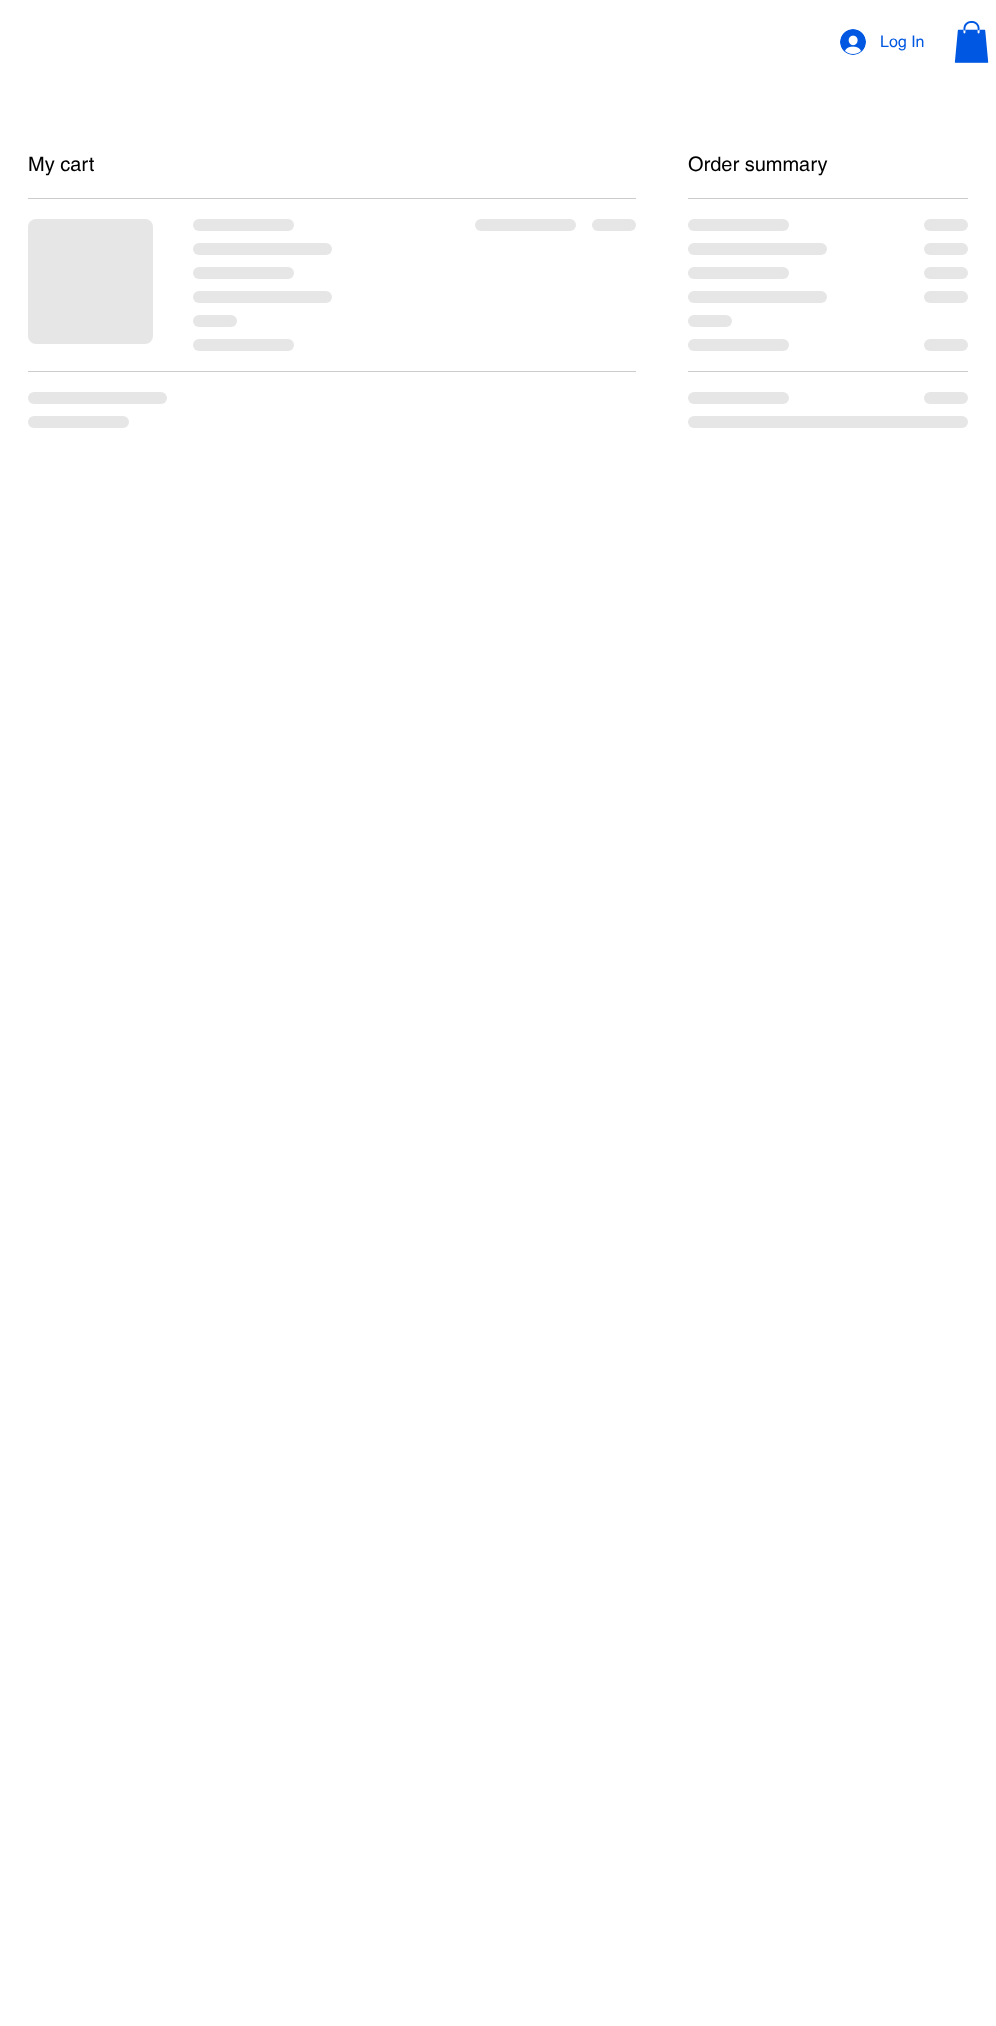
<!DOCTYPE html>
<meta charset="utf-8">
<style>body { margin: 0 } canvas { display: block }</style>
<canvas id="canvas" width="996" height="2026"></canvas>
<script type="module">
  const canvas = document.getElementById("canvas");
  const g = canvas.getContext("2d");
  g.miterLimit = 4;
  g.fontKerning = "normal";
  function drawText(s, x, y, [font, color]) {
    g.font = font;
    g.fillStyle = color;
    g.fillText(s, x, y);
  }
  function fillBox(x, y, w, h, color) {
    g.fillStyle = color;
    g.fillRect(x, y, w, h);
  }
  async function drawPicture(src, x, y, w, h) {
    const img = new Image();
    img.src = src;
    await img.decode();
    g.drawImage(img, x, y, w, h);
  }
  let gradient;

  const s1 = ["16px helvetica", "#0057E1"];
  const s2 = ["20px helvetica", "#000000"];

  fillBox(0, 0, 996, 2026, "#FFFFFF");
  await drawPicture("pic1.png", 840, 29, 26, 26);
  drawText("Log In", 880, 47, s1);
  await drawPicture("pic2.png", 954, 21, 35, 42);
  fillBox(28, 198, 608, 1, "#CCCCCC");
  drawText("My cart", 28, 171, s2);
  gradient = g.createLinearGradient(28, 282, 528, 282);
  gradient.addColorStop(0.25, "#E6E6E6");
  gradient.addColorStop(0.37, "#CCCCCC");
  gradient.addColorStop(0.63, "#E6E6E6");
  g.fillStyle = gradient;
  g.beginPath();
  g.roundRect(28, 219, 125, 125, 8);
  g.fill();
  gradient = g.createLinearGradient(193, 225, 597, 225);
  gradient.addColorStop(0.25, "#E6E6E6");
  gradient.addColorStop(0.37, "#CCCCCC");
  gradient.addColorStop(0.63, "#E6E6E6");
  g.fillStyle = gradient;
  g.beginPath();
  g.roundRect(193, 219, 101, 12, 6);
  g.fill();
  gradient = g.createLinearGradient(193, 249, 749, 249);
  gradient.addColorStop(0.25, "#E6E6E6");
  gradient.addColorStop(0.37, "#CCCCCC");
  gradient.addColorStop(0.63, "#E6E6E6");
  g.fillStyle = gradient;
  g.beginPath();
  g.roundRect(193, 243, 139, 12, 6);
  g.fill();
  gradient = g.createLinearGradient(193, 273, 597, 273);
  gradient.addColorStop(0.25, "#E6E6E6");
  gradient.addColorStop(0.37, "#CCCCCC");
  gradient.addColorStop(0.63, "#E6E6E6");
  g.fillStyle = gradient;
  g.beginPath();
  g.roundRect(193, 267, 101, 12, 6);
  g.fill();
  gradient = g.createLinearGradient(193, 297, 749, 297);
  gradient.addColorStop(0.25, "#E6E6E6");
  gradient.addColorStop(0.37, "#CCCCCC");
  gradient.addColorStop(0.63, "#E6E6E6");
  g.fillStyle = gradient;
  g.beginPath();
  g.roundRect(193, 291, 139, 12, 6);
  g.fill();
  gradient = g.createLinearGradient(193, 321, 369, 321);
  gradient.addColorStop(0.25, "#E6E6E6");
  gradient.addColorStop(0.37, "#CCCCCC");
  gradient.addColorStop(0.63, "#E6E6E6");
  g.fillStyle = gradient;
  g.beginPath();
  g.roundRect(193, 315, 44, 12, 6);
  g.fill();
  gradient = g.createLinearGradient(193, 345, 597, 345);
  gradient.addColorStop(0.25, "#E6E6E6");
  gradient.addColorStop(0.37, "#CCCCCC");
  gradient.addColorStop(0.63, "#E6E6E6");
  g.fillStyle = gradient;
  g.beginPath();
  g.roundRect(193, 339, 101, 12, 6);
  g.fill();
  gradient = g.createLinearGradient(475, 225, 879, 225);
  gradient.addColorStop(0.25, "#E6E6E6");
  gradient.addColorStop(0.37, "#CCCCCC");
  gradient.addColorStop(0.63, "#E6E6E6");
  g.fillStyle = gradient;
  g.beginPath();
  g.roundRect(475, 219, 101, 12, 6);
  g.fill();
  gradient = g.createLinearGradient(592, 225, 768, 225);
  gradient.addColorStop(0.25, "#E6E6E6");
  gradient.addColorStop(0.37, "#CCCCCC");
  gradient.addColorStop(0.63, "#E6E6E6");
  g.fillStyle = gradient;
  g.beginPath();
  g.roundRect(592, 219, 44, 12, 6);
  g.fill();
  fillBox(28, 371, 608, 1, "#CCCCCC");
  gradient = g.createLinearGradient(28, 398, 584, 398);
  gradient.addColorStop(0.25, "#E6E6E6");
  gradient.addColorStop(0.37, "#CCCCCC");
  gradient.addColorStop(0.63, "#E6E6E6");
  g.fillStyle = gradient;
  g.beginPath();
  g.roundRect(28, 392, 139, 12, 6);
  g.fill();
  gradient = g.createLinearGradient(28, 422, 432, 422);
  gradient.addColorStop(0.25, "#E6E6E6");
  gradient.addColorStop(0.37, "#CCCCCC");
  gradient.addColorStop(0.63, "#E6E6E6");
  g.fillStyle = gradient;
  g.beginPath();
  g.roundRect(28, 416, 101, 12, 6);
  g.fill();
  fillBox(688, 198, 280, 1, "#CCCCCC");
  drawText("Order summary", 688, 171, s2);
  gradient = g.createLinearGradient(688, 225, 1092, 225);
  gradient.addColorStop(0.25, "#E6E6E6");
  gradient.addColorStop(0.37, "#CCCCCC");
  gradient.addColorStop(0.63, "#E6E6E6");
  g.fillStyle = gradient;
  g.beginPath();
  g.roundRect(688, 219, 101, 12, 6);
  g.fill();
  gradient = g.createLinearGradient(924, 225, 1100, 225);
  gradient.addColorStop(0.25, "#E6E6E6");
  gradient.addColorStop(0.37, "#CCCCCC");
  gradient.addColorStop(0.63, "#E6E6E6");
  g.fillStyle = gradient;
  g.beginPath();
  g.roundRect(924, 219, 44, 12, 6);
  g.fill();
  gradient = g.createLinearGradient(688, 249, 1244, 249);
  gradient.addColorStop(0.25, "#E6E6E6");
  gradient.addColorStop(0.37, "#CCCCCC");
  gradient.addColorStop(0.63, "#E6E6E6");
  g.fillStyle = gradient;
  g.beginPath();
  g.roundRect(688, 243, 139, 12, 6);
  g.fill();
  gradient = g.createLinearGradient(924, 249, 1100, 249);
  gradient.addColorStop(0.25, "#E6E6E6");
  gradient.addColorStop(0.37, "#CCCCCC");
  gradient.addColorStop(0.63, "#E6E6E6");
  g.fillStyle = gradient;
  g.beginPath();
  g.roundRect(924, 243, 44, 12, 6);
  g.fill();
  gradient = g.createLinearGradient(688, 273, 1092, 273);
  gradient.addColorStop(0.25, "#E6E6E6");
  gradient.addColorStop(0.37, "#CCCCCC");
  gradient.addColorStop(0.63, "#E6E6E6");
  g.fillStyle = gradient;
  g.beginPath();
  g.roundRect(688, 267, 101, 12, 6);
  g.fill();
  gradient = g.createLinearGradient(924, 273, 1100, 273);
  gradient.addColorStop(0.25, "#E6E6E6");
  gradient.addColorStop(0.37, "#CCCCCC");
  gradient.addColorStop(0.63, "#E6E6E6");
  g.fillStyle = gradient;
  g.beginPath();
  g.roundRect(924, 267, 44, 12, 6);
  g.fill();
  gradient = g.createLinearGradient(688, 297, 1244, 297);
  gradient.addColorStop(0.25, "#E6E6E6");
  gradient.addColorStop(0.37, "#CCCCCC");
  gradient.addColorStop(0.63, "#E6E6E6");
  g.fillStyle = gradient;
  g.beginPath();
  g.roundRect(688, 291, 139, 12, 6);
  g.fill();
  gradient = g.createLinearGradient(924, 297, 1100, 297);
  gradient.addColorStop(0.25, "#E6E6E6");
  gradient.addColorStop(0.37, "#CCCCCC");
  gradient.addColorStop(0.63, "#E6E6E6");
  g.fillStyle = gradient;
  g.beginPath();
  g.roundRect(924, 291, 44, 12, 6);
  g.fill();
  gradient = g.createLinearGradient(688, 321, 864, 321);
  gradient.addColorStop(0.25, "#E6E6E6");
  gradient.addColorStop(0.37, "#CCCCCC");
  gradient.addColorStop(0.63, "#E6E6E6");
  g.fillStyle = gradient;
  g.beginPath();
  g.roundRect(688, 315, 44, 12, 6);
  g.fill();
  gradient = g.createLinearGradient(688, 345, 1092, 345);
  gradient.addColorStop(0.25, "#E6E6E6");
  gradient.addColorStop(0.37, "#CCCCCC");
  gradient.addColorStop(0.63, "#E6E6E6");
  g.fillStyle = gradient;
  g.beginPath();
  g.roundRect(688, 339, 101, 12, 6);
  g.fill();
  gradient = g.createLinearGradient(924, 345, 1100, 345);
  gradient.addColorStop(0.25, "#E6E6E6");
  gradient.addColorStop(0.37, "#CCCCCC");
  gradient.addColorStop(0.63, "#E6E6E6");
  g.fillStyle = gradient;
  g.beginPath();
  g.roundRect(924, 339, 44, 12, 6);
  g.fill();
  fillBox(688, 371, 280, 1, "#CCCCCC");
  gradient = g.createLinearGradient(688, 398, 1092, 398);
  gradient.addColorStop(0.25, "#E6E6E6");
  gradient.addColorStop(0.37, "#CCCCCC");
  gradient.addColorStop(0.63, "#E6E6E6");
  g.fillStyle = gradient;
  g.beginPath();
  g.roundRect(688, 392, 101, 12, 6);
  g.fill();
  gradient = g.createLinearGradient(924, 398, 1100, 398);
  gradient.addColorStop(0.25, "#E6E6E6");
  gradient.addColorStop(0.37, "#CCCCCC");
  gradient.addColorStop(0.63, "#E6E6E6");
  g.fillStyle = gradient;
  g.beginPath();
  g.roundRect(924, 392, 44, 12, 6);
  g.fill();
  gradient = g.createLinearGradient(688, 422, 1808, 422);
  gradient.addColorStop(0.25, "#E6E6E6");
  gradient.addColorStop(0.37, "#CCCCCC");
  gradient.addColorStop(0.63, "#E6E6E6");
  g.fillStyle = gradient;
  g.beginPath();
  g.roundRect(688, 416, 280, 12, 6);
  g.fill();
</script>
